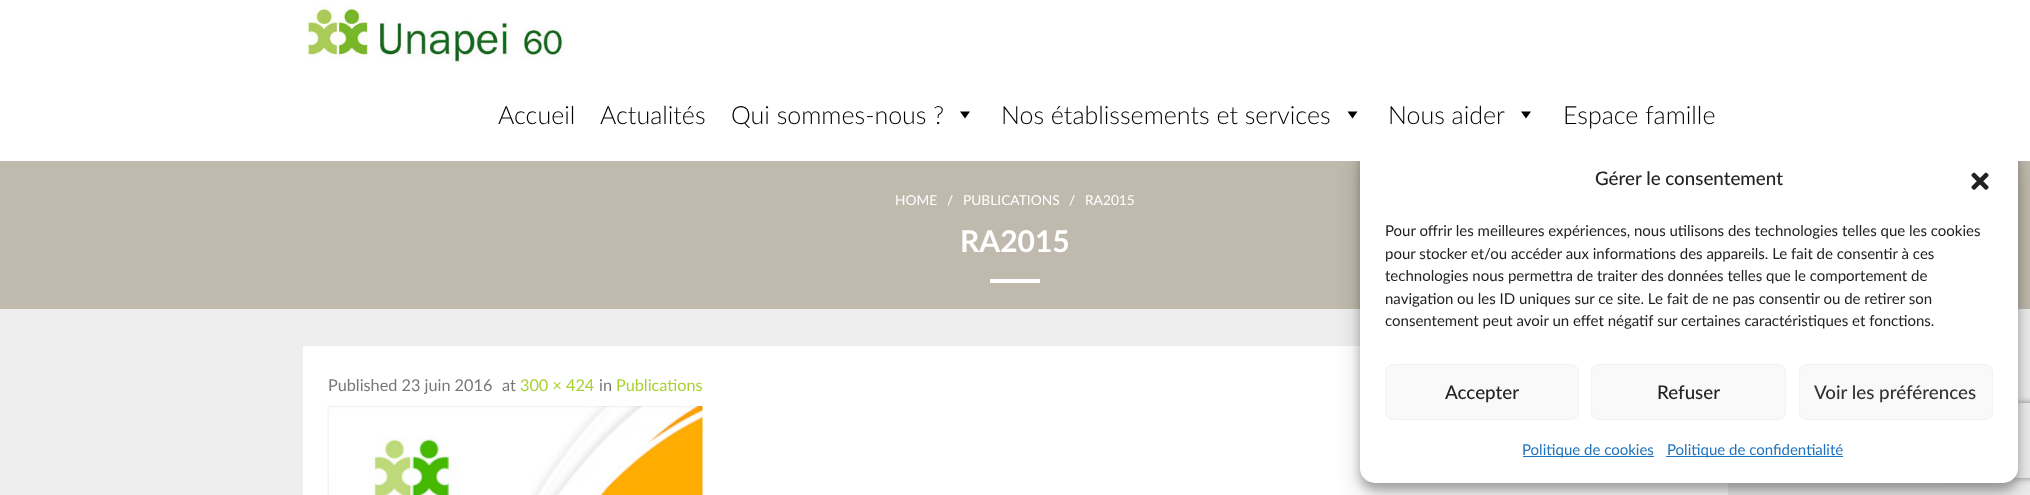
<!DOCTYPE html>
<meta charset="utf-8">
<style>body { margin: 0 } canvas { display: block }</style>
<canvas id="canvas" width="2030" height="495"></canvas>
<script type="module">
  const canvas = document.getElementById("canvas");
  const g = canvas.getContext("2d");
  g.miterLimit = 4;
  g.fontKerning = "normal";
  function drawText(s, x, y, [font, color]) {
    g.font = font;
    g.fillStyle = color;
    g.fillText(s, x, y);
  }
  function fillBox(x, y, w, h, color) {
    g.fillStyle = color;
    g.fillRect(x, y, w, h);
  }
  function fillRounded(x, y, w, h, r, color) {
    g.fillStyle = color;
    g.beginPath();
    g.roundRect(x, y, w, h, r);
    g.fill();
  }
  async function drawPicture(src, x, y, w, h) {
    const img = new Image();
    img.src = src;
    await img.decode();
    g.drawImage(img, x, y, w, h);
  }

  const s1 = ["300 25px Lato", "#000000"];
  const s2 = ["13.75px Lato", "#FFFFFF"];
  const s3 = ["bold 30px Lato", "#FFFFFF"];
  const s4 = ["16.25px Lato", "#777777"];
  const s5 = ["16.25px Lato", "#A9D132"];
  const s6 = ["500 18.75px Lato", "#222222"];
  const s7 = ["15px Lato", "#222222"];
  const s8 = ["500 18.75px Lato", "#333333"];
  const s9 = ["15px Lato", "#1E73BE"];

  fillBox(0, 0, 2030, 495, "#EEEEEE");
  fillBox(0, 161, 2030, 148, "#BFBAAD");
  fillBox(303, 346, 1425, 149, "#FFFFFF");
  g.fillStyle = "rgba(0, 0, 0, 0.23)";
  g.filter = "blur(4px)";
  g.beginPath();
  g.roundRect(1360, 150, 658, 340, 15);
  g.fill();
  g.filter = "none";
  g.fillStyle = "rgba(0, 0, 0, 0.19)";
  g.filter = "blur(12.5px)";
  g.beginPath();
  g.roundRect(1360, 155, 658, 340, 15);
  g.fill();
  g.filter = "none";
  g.save();
  g.beginPath();
  g.moveTo(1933, 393);
  g.lineTo(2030, 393);
  g.lineTo(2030, 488);
  g.lineTo(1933, 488);
  g.closePath();
  g.moveTo(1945.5, 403);
  g.lineTo(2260.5, 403);
  g.bezierCurveTo(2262, 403, 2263, 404, 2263, 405.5);
  g.lineTo(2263, 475.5);
  g.bezierCurveTo(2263, 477, 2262, 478, 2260.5, 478);
  g.lineTo(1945.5, 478);
  g.bezierCurveTo(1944, 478, 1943, 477, 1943, 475.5);
  g.lineTo(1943, 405.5);
  g.bezierCurveTo(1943, 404, 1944, 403, 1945.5, 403);
  g.closePath();
  g.clip("evenodd");
  g.fillStyle = "#808080";
  g.filter = "blur(3px)";
  g.beginPath();
  g.roundRect(1943, 403, 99, 75, 2.5);
  g.fill();
  g.filter = "none";
  g.restore();
  fillRounded(1360, 143, 658, 340, 15, "#FFFFFF");
  fillBox(0, 0, 2030, 161, "#FFFFFF");
  await drawPicture("pic1.png", 308, 5, 257, 59);
  drawText("Accueil", 498, 124, s1);
  drawText("Actualités", 600, 124, s1);
  drawText("Qui sommes-nous ?", 731, 124, s1);
  g.beginPath();
  g.moveTo(970, 111.5);
  g.lineTo(965, 118.5);
  g.lineTo(960, 111.5);
  g.closePath();
  g.fill();
  drawText("Nos établissements et services", 1001, 124, s1);
  g.beginPath();
  g.moveTo(1357.5, 111.5);
  g.lineTo(1352.5, 118.5);
  g.lineTo(1347.5, 111.5);
  g.closePath();
  g.fill();
  drawText("Nous aider", 1388, 124, s1);
  g.beginPath();
  g.moveTo(1531, 111.5);
  g.lineTo(1526, 118.5);
  g.lineTo(1521, 111.5);
  g.closePath();
  g.fill();
  drawText("Espace famille", 1563, 124, s1);
  drawText("HOME", 895, 205, s2);
  drawText("/", 947, 205, s2);
  drawText("PUBLICATIONS", 963, 205, s2);
  drawText("/", 1069, 205, s2);
  drawText("RA2015", 1085, 205, s2);
  drawText("RA2015", 960, 252, s3);
  fillBox(990, 279, 50, 4, "#FFFFFF");
  drawText("Published 23 juin 2016", 328, 391, s4);
  drawText("at", 502, 391, s4);
  drawText("300 × 424", 520, 391, s5);
  drawText("in", 599, 391, s4);
  drawText("Publications", 616, 391, s5);
  await drawPicture("pic2.png", 327, 406, 376, 89);
  drawText("Gérer le consentement", 1595, 185, s6);
  await drawPicture("pic3.png", 1971, 172, 18, 18);
  drawText("Pour offrir les meilleures expériences, nous utilisons des technologies telles que les cookies", 1385, 236, s7);
  drawText("pour stocker et/ou accéder aux informations des appareils. Le fait de consentir à ces", 1385, 259, s7);
  drawText("technologies nous permettra de traiter des données telles que le comportement de", 1385, 281, s7);
  drawText("navigation ou les ID uniques sur ce site. Le fait de ne pas consentir ou de retirer son", 1385, 304, s7);
  drawText("consentement peut avoir un effet négatif sur certaines caractéristiques et fonctions.", 1385, 326, s7);
  g.fillStyle = "#F9F9F9";
  g.beginPath();
  g.roundRect(1385.5, 364.5, 193, 55, 7.5);
  g.fill();
  g.strokeStyle = "#F2F2F2";
  g.stroke();
  drawText("Accepter", 1445, 399, s6);
  g.fillStyle = "#F9F9F9";
  g.beginPath();
  g.roundRect(1591.5, 364.5, 194, 55, 7.5);
  g.fill();
  g.stroke();
  drawText("Refuser", 1657, 399, s6);
  g.fillStyle = "#F9F9F9";
  g.beginPath();
  g.roundRect(1799.5, 364.5, 193, 55, 7.5);
  g.fill();
  g.stroke();
  drawText("Voir les préférences", 1814, 399, s8);
  fillBox(1523, 456, 131, 1, "#1E73BE");
  drawText("Politique de cookies", 1522, 455, s9);
  fillBox(1666, 456, 177, 1, "#1E73BE");
  drawText("Politique de confidentialité", 1667, 455, s9);
</script>
